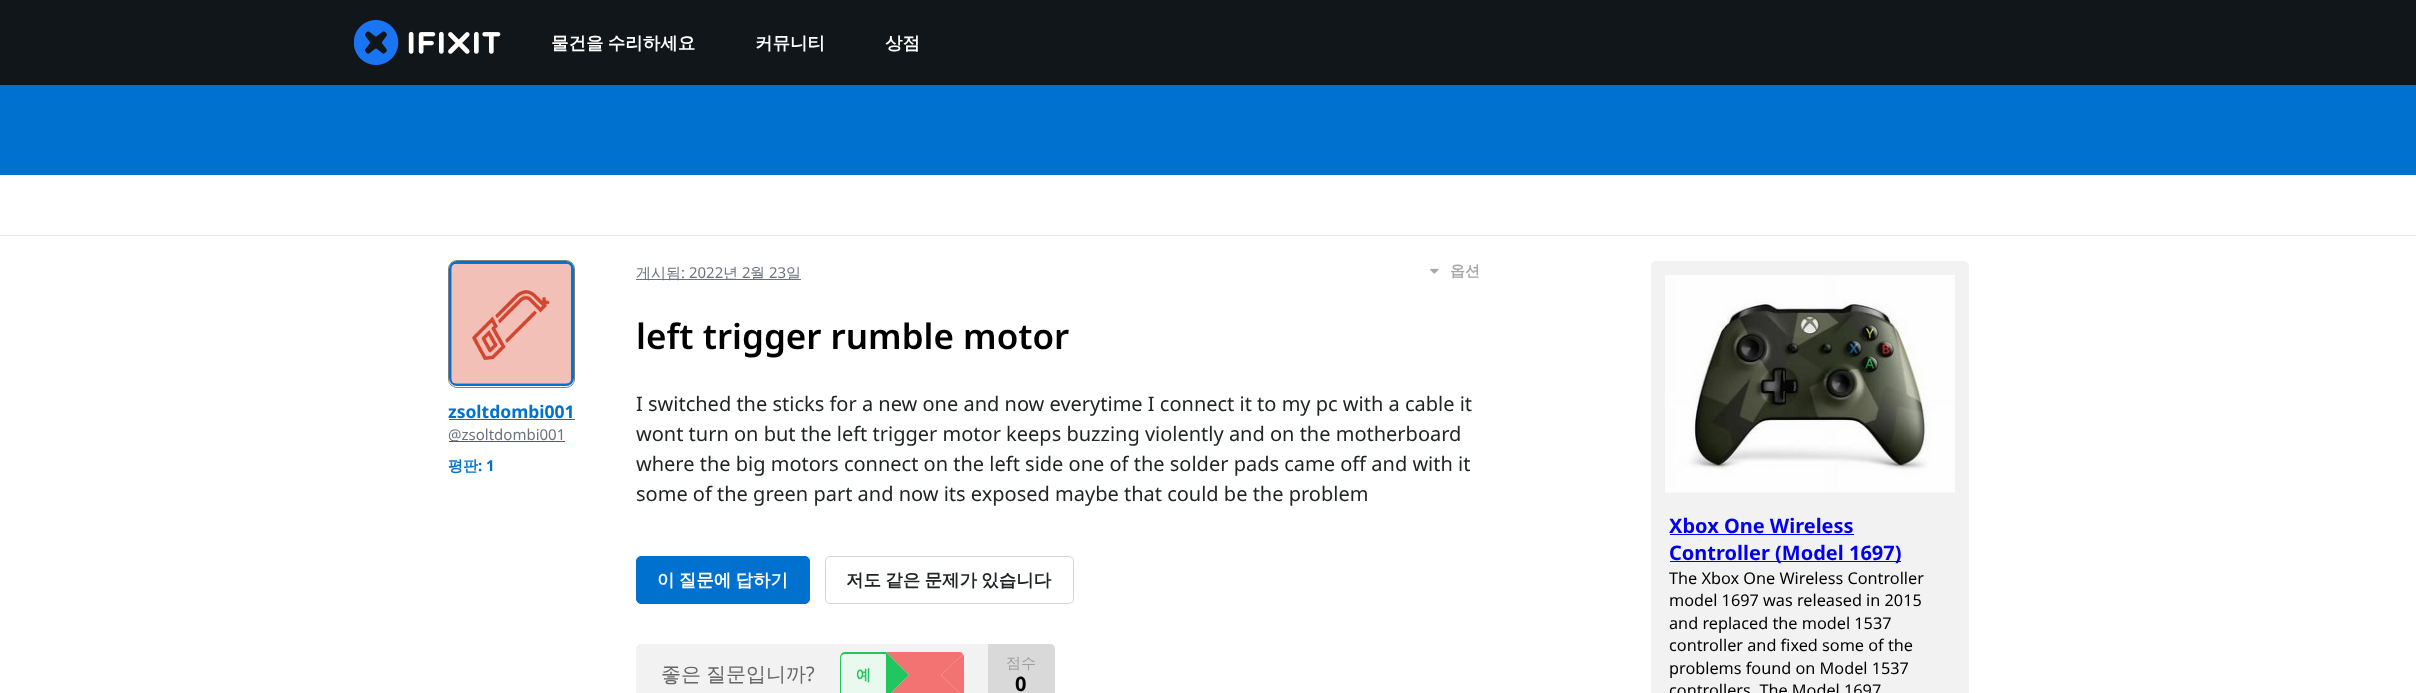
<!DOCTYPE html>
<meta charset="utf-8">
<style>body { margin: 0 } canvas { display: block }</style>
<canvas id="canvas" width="2416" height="693"></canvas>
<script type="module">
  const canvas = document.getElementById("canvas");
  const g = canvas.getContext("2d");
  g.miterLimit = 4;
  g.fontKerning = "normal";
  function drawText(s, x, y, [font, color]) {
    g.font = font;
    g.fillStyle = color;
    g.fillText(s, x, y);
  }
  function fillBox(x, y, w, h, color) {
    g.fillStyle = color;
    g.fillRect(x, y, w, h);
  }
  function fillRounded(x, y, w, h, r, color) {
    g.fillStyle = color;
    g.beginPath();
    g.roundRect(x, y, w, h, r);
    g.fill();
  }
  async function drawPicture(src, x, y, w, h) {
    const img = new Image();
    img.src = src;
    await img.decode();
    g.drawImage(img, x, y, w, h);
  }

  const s1 = ["bold 17.5px WenQuanYi Zen Hei", "#FFFFFF"];
  const s2 = ["bold 17.5px Noto Sans", "#0071CE"];
  const s3 = ["15px Noto Sans", "#6B7280"];
  const s4 = ["bold 15px WenQuanYi Zen Hei", "#0071CE"];
  const s5 = ["bold 15px Noto Sans", "#0071CE"];
  const s6 = ["500 15px WenQuanYi Zen Hei", "#6B7280"];
  const s7 = ["bold 15px WenQuanYi Zen Hei", "#A6A7A8"];
  const s8 = ["600 35px Noto Sans", "#000000"];
  const s9 = ["20px Noto Sans", "#212426"];
  const s10 = ["bold 17.5px WenQuanYi Zen Hei", "#212426"];
  const s11 = ["500 20px WenQuanYi Zen Hei", "#666666"];
  const s12 = ["20px Noto Sans", "#666666"];
  const s13 = ["bold 15px WenQuanYi Zen Hei", "#22C55E"];
  const s14 = ["500 15px WenQuanYi Zen Hei", "#9E9E9E"];
  const s15 = ["bold 20px Noto Sans", "#000000"];
  const s16 = ["bold 20px Noto Sans", "#0000EE"];
  const s17 = ["16.25px Noto Sans", "#000000"];

  fillBox(0, 0, 2416, 693, "#FFFFFF");
  fillBox(0, 0, 2416, 85, "#11161A");
  await drawPicture("pic1.png", 354, 20, 147, 45);
  g.wordSpacing = "-1px";
  drawText("물건을 수리하세요", 551, 49, s1);
  g.wordSpacing = "0px";
  drawText("커뮤니티", 755, 49, s1);
  drawText("상점", 885, 49, s1);
  fillBox(0, 85, 2416, 90, "#0071CE");
  fillBox(0, 235, 2416, 1, "#E5E7EB");
  g.beginPath();
  g.roundRect(448.5, 260.5, 126, 127, 8.5);
  g.strokeStyle = "#808080";
  g.stroke();
  g.beginPath();
  g.roundRect(450.5, 262.5, 122, 122, 6.5);
  g.strokeStyle = "#0071CE";
  g.lineWidth = 3;
  g.stroke();
  await drawPicture("pic2.png", 451, 263, 121, 121);
  drawText("zsoltdombi001", 448, 418, s2);
  fillBox(449, 419, 126, 1, "#0071CE");
  fillBox(449, 441, 116, 1, "#0071CE");
  drawText("@zsoltdombi001", 448, 440, s3);
  drawText("평판", 448, 471, s4);
  drawText(": 1", 478, 471, s5);
  fillBox(636, 279, 165, 1, "#6B7280");
  drawText("게시됨", 636, 278, s6);
  drawText(": 2022", 681, 278, s3);
  drawText("년", 723, 278, s6);
  drawText("2", 742, 278, s3);
  drawText("월", 750, 278, s6);
  drawText("23", 769, 278, s3);
  drawText("일", 786, 278, s6);
  await drawPicture("pic3.png", 1430, 268, 9, 6);
  drawText("옵션", 1450, 276, s7);
  drawText("left trigger rumble motor", 636, 349, s8);
  drawText("I switched the sticks for a new one and now everytime I connect it to my pc with a cable it", 636, 411, s9);
  drawText("wont turn on but the left trigger motor keeps buzzing violently and on the motherboard", 636, 441, s9);
  drawText("where the big motors connect on the left side one of the solder pads came off and with it", 636, 471, s9);
  drawText("some of the green part and now its exposed maybe that could be the problem", 636, 501, s9);
  g.fillStyle = "#0071CE";
  g.beginPath();
  g.roundRect(636.5, 556.5, 173, 47, 4.5);
  g.fill();
  g.lineWidth = 1;
  g.stroke();
  g.wordSpacing = "-1px";
  drawText("이 질문에 답하기", 657, 586, s1);
  g.beginPath();
  g.roundRect(825.5, 556.5, 248, 47, 4.5);
  g.strokeStyle = "#D1D5DB";
  g.stroke();
  drawText("저도 같은 문제가 있습니다", 846, 586, s10);
  fillRounded(636, 644, 419, 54, 5, "#F2F2F2");
  drawText("좋은 질문입니까", 661, 681, s11);
  g.wordSpacing = "0px";
  drawText("?", 806, 681, s12);
  g.fillStyle = "#E9F9EF";
  g.beginPath();
  g.moveTo(845, 653);
  g.lineTo(886, 653);
  g.lineTo(886, 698);
  g.lineTo(845, 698);
  g.bezierCurveTo(842, 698, 840, 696, 840, 693);
  g.lineTo(840, 658);
  g.bezierCurveTo(840, 655, 842, 653, 845, 653);
  g.closePath();
  g.fill();
  g.fillStyle = "#22C55E";
  g.beginPath();
  g.moveTo(845, 652);
  g.lineTo(886, 652);
  g.lineTo(886, 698);
  g.lineTo(845, 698);
  g.bezierCurveTo(842, 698, 840, 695, 840, 692);
  g.lineTo(840, 658);
  g.bezierCurveTo(840, 655, 842, 652, 845, 652);
  g.closePath();
  g.moveTo(845, 654);
  g.lineTo(886, 654);
  g.lineTo(886, 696);
  g.lineTo(845, 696);
  g.bezierCurveTo(843, 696, 841, 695, 841, 692);
  g.lineTo(841, 658);
  g.bezierCurveTo(841, 655, 843, 654, 845, 654);
  g.closePath();
  g.fill("evenodd");
  drawText("예", 856, 680, s13);
  g.fillStyle = "#F37373";
  g.beginPath();
  g.moveTo(886, 652);
  g.lineTo(909, 675);
  g.lineTo(941, 675);
  g.lineTo(963, 654);
  g.lineTo(961, 652);
  g.closePath();
  g.fill();
  g.beginPath();
  g.moveTo(963, 654);
  g.lineTo(941, 675);
  g.lineTo(963, 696);
  g.lineTo(964, 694);
  g.lineTo(964, 656);
  g.closePath();
  g.fill();
  g.beginPath();
  g.moveTo(963, 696);
  g.lineTo(941, 675);
  g.lineTo(909, 675);
  g.lineTo(886, 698);
  g.lineTo(961, 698);
  g.closePath();
  g.fill();
  g.fillStyle = "#22C55E";
  g.beginPath();
  g.moveTo(886, 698);
  g.lineTo(909, 675);
  g.lineTo(886, 652);
  g.closePath();
  g.fill();
  g.fillStyle = "rgba(0, 0, 0, 0.1)";
  g.beginPath();
  g.moveTo(988, 644);
  g.lineTo(1050, 644);
  g.bezierCurveTo(1053, 644, 1055, 646, 1055, 649);
  g.lineTo(1055, 693);
  g.bezierCurveTo(1055, 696, 1053, 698, 1050, 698);
  g.lineTo(988, 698);
  g.closePath();
  g.fill();
  drawText("점수", 1006, 668, s14);
  drawText("0", 1015, 691, s15);
  fillRounded(1651, 261, 318, 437, 5, "#F2F2F2");
  await drawPicture("pic4.png", 1665, 275, 290, 218);
  drawText("Xbox One Wireless", 1669, 533, s16);
  fillBox(1670, 534, 184, 1, "#0000EE");
  fillBox(1670, 561, 231, 1, "#0000EE");
  drawText("Controller (Model 1697)", 1669, 560, s16);
  drawText("The Xbox One Wireless Controller", 1669, 584, s17);
  drawText("model 1697 was released in 2015", 1669, 606, s17);
  drawText("and replaced the model 1537", 1669, 629, s17);
  drawText("controller and fixed some of the", 1669, 651, s17);
  drawText("problems found on Model 1537", 1669, 674, s17);
  drawText("controllers. The Model 1697", 1669, 696, s17);
</script>
